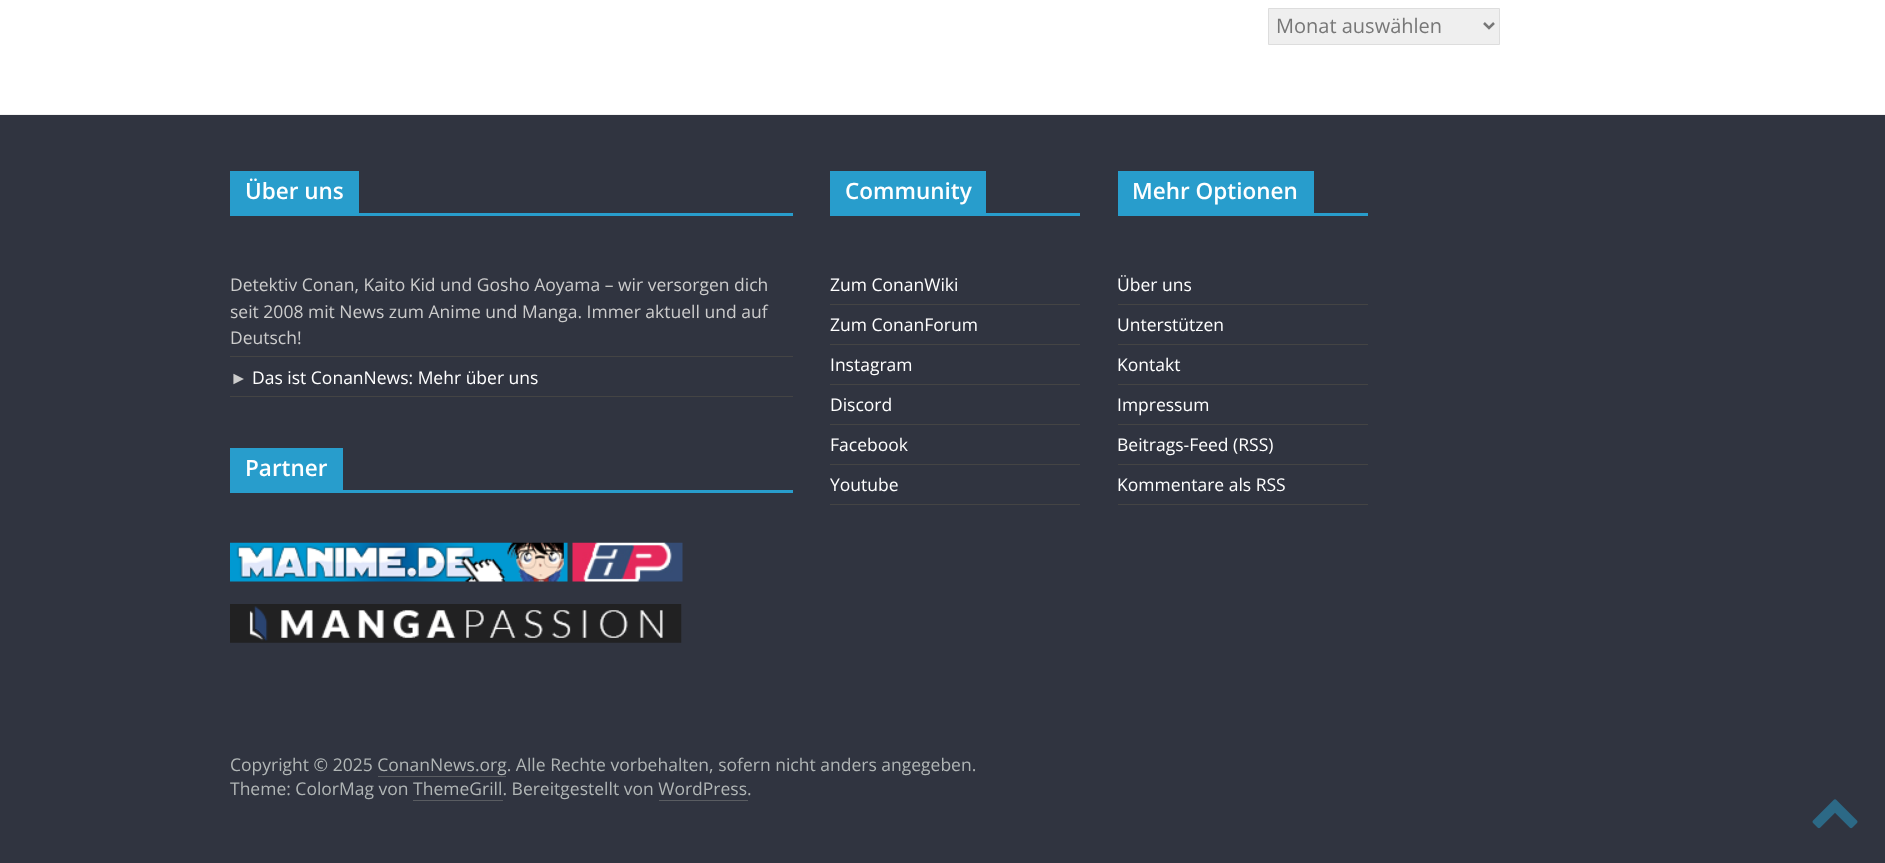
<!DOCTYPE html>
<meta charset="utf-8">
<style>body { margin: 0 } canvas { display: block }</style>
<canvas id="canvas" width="1885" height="863"></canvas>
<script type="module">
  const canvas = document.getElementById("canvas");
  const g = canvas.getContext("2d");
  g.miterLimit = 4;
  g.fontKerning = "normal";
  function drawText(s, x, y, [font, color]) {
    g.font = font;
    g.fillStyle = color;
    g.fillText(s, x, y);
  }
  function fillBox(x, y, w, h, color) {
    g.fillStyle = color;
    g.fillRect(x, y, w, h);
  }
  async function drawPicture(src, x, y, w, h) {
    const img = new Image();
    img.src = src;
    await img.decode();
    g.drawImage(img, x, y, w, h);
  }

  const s1 = ["20px Open Sans", "#777777"];
  const s2 = ["600 22.5px Open Sans", "#FFFFFF"];
  const s3 = ["17.5px Open Sans", "#CCCCCC"];
  const s4 = ["17.5px Liberation Serif", "#CCCCCC"];
  const s5 = ["17.5px Open Sans", "#FFFFFF"];
  const s6 = ["17.5px Open Sans", "#B1B6B6"];

  fillBox(0, 0, 1885, 863, "#FFFFFF");
  g.fillStyle = "#EFEFEF";
  g.beginPath();
  g.rect(1268.5, 8.5, 231, 36);
  g.fill();
  g.strokeStyle = "#DDDDDD";
  g.stroke();
  g.beginPath();
  g.moveTo(1484, 23);
  g.lineTo(1489, 28);
  g.lineTo(1494, 23);
  g.strokeStyle = "#777777";
  g.lineWidth = 2.5;
  g.stroke();
  drawText("Monat auswählen", 1276, 33, s1);
  fillBox(0, 115, 1885, 748, "#303440");
  fillBox(0, 114, 1885, 1, "#F2F2F2");
  fillBox(230, 213, 563, 3, "#289DCC");
  fillBox(230, 171, 129, 42, "#289DCC");
  drawText("Über uns", 245, 199, s2);
  fillBox(230, 356, 563, 1, "#444444");
  drawText("Detektiv Conan, Kaito Kid und Gosho Aoyama – wir versorgen dich", 230, 291, s3);
  drawText("seit 2008 mit News zum Anime und Manga. Immer aktuell und auf", 230, 318, s3);
  drawText("Deutsch!", 230, 344, s3);
  fillBox(230, 396, 563, 1, "#444444");
  drawText("►", 230, 384, s4);
  drawText("Das ist ConanNews: Mehr über uns", 252, 384, s5);
  fillBox(230, 490, 563, 3, "#289DCC");
  fillBox(230, 448, 113, 42, "#289DCC");
  drawText("Partner", 245, 476, s2);
  await drawPicture("pic1.png", 230, 542, 338, 40);
  await drawPicture("pic2.png", 572, 542, 111, 40);
  await drawPicture("pic3.png", 230, 604, 452, 39);
  fillBox(830, 213, 250, 3, "#289DCC");
  fillBox(830, 171, 156, 42, "#289DCC");
  drawText("Community", 845, 199, s2);
  fillBox(830, 304, 250, 1, "#444444");
  drawText("Zum ConanWiki", 830, 291, s5);
  fillBox(830, 344, 250, 1, "#444444");
  drawText("Zum ConanForum", 830, 331, s5);
  fillBox(830, 384, 250, 1, "#444444");
  drawText("Instagram", 830, 371, s5);
  fillBox(830, 424, 250, 1, "#444444");
  drawText("Discord", 830, 411, s5);
  fillBox(830, 464, 250, 1, "#444444");
  drawText("Facebook", 830, 451, s5);
  fillBox(830, 504, 250, 1, "#444444");
  drawText("Youtube", 830, 491, s5);
  fillBox(1118, 213, 250, 3, "#289DCC");
  fillBox(1118, 171, 196, 42, "#289DCC");
  drawText("Mehr Optionen", 1132, 199, s2);
  fillBox(1118, 304, 250, 1, "#444444");
  drawText("Über uns", 1117, 291, s5);
  fillBox(1118, 344, 250, 1, "#444444");
  drawText("Unterstützen", 1117, 331, s5);
  fillBox(1118, 384, 250, 1, "#444444");
  drawText("Kontakt", 1117, 371, s5);
  fillBox(1118, 424, 250, 1, "#444444");
  drawText("Impressum", 1117, 411, s5);
  fillBox(1118, 464, 250, 1, "#444444");
  drawText("Beitrags-Feed (RSS)", 1117, 451, s5);
  fillBox(1118, 504, 250, 1, "#444444");
  drawText("Kommentare als RSS", 1117, 491, s5);
  drawText("Copyright © 2025 ConanNews.org. Alle Rechte vorbehalten, sofern nicht anders angegeben.", 230, 771, s6);
  fillBox(378, 776, 128, 1, "#5A5D62");
  drawText("Theme: ColorMag von ThemeGrill. Bereitgestellt von WordPress.", 230, 795, s6);
  fillBox(413, 800, 90, 1, "#5A5D62");
  fillBox(659, 800, 89, 1, "#5A5D62");
  await drawPicture("pic4.png", 1812, 799, 46, 30);
</script>
